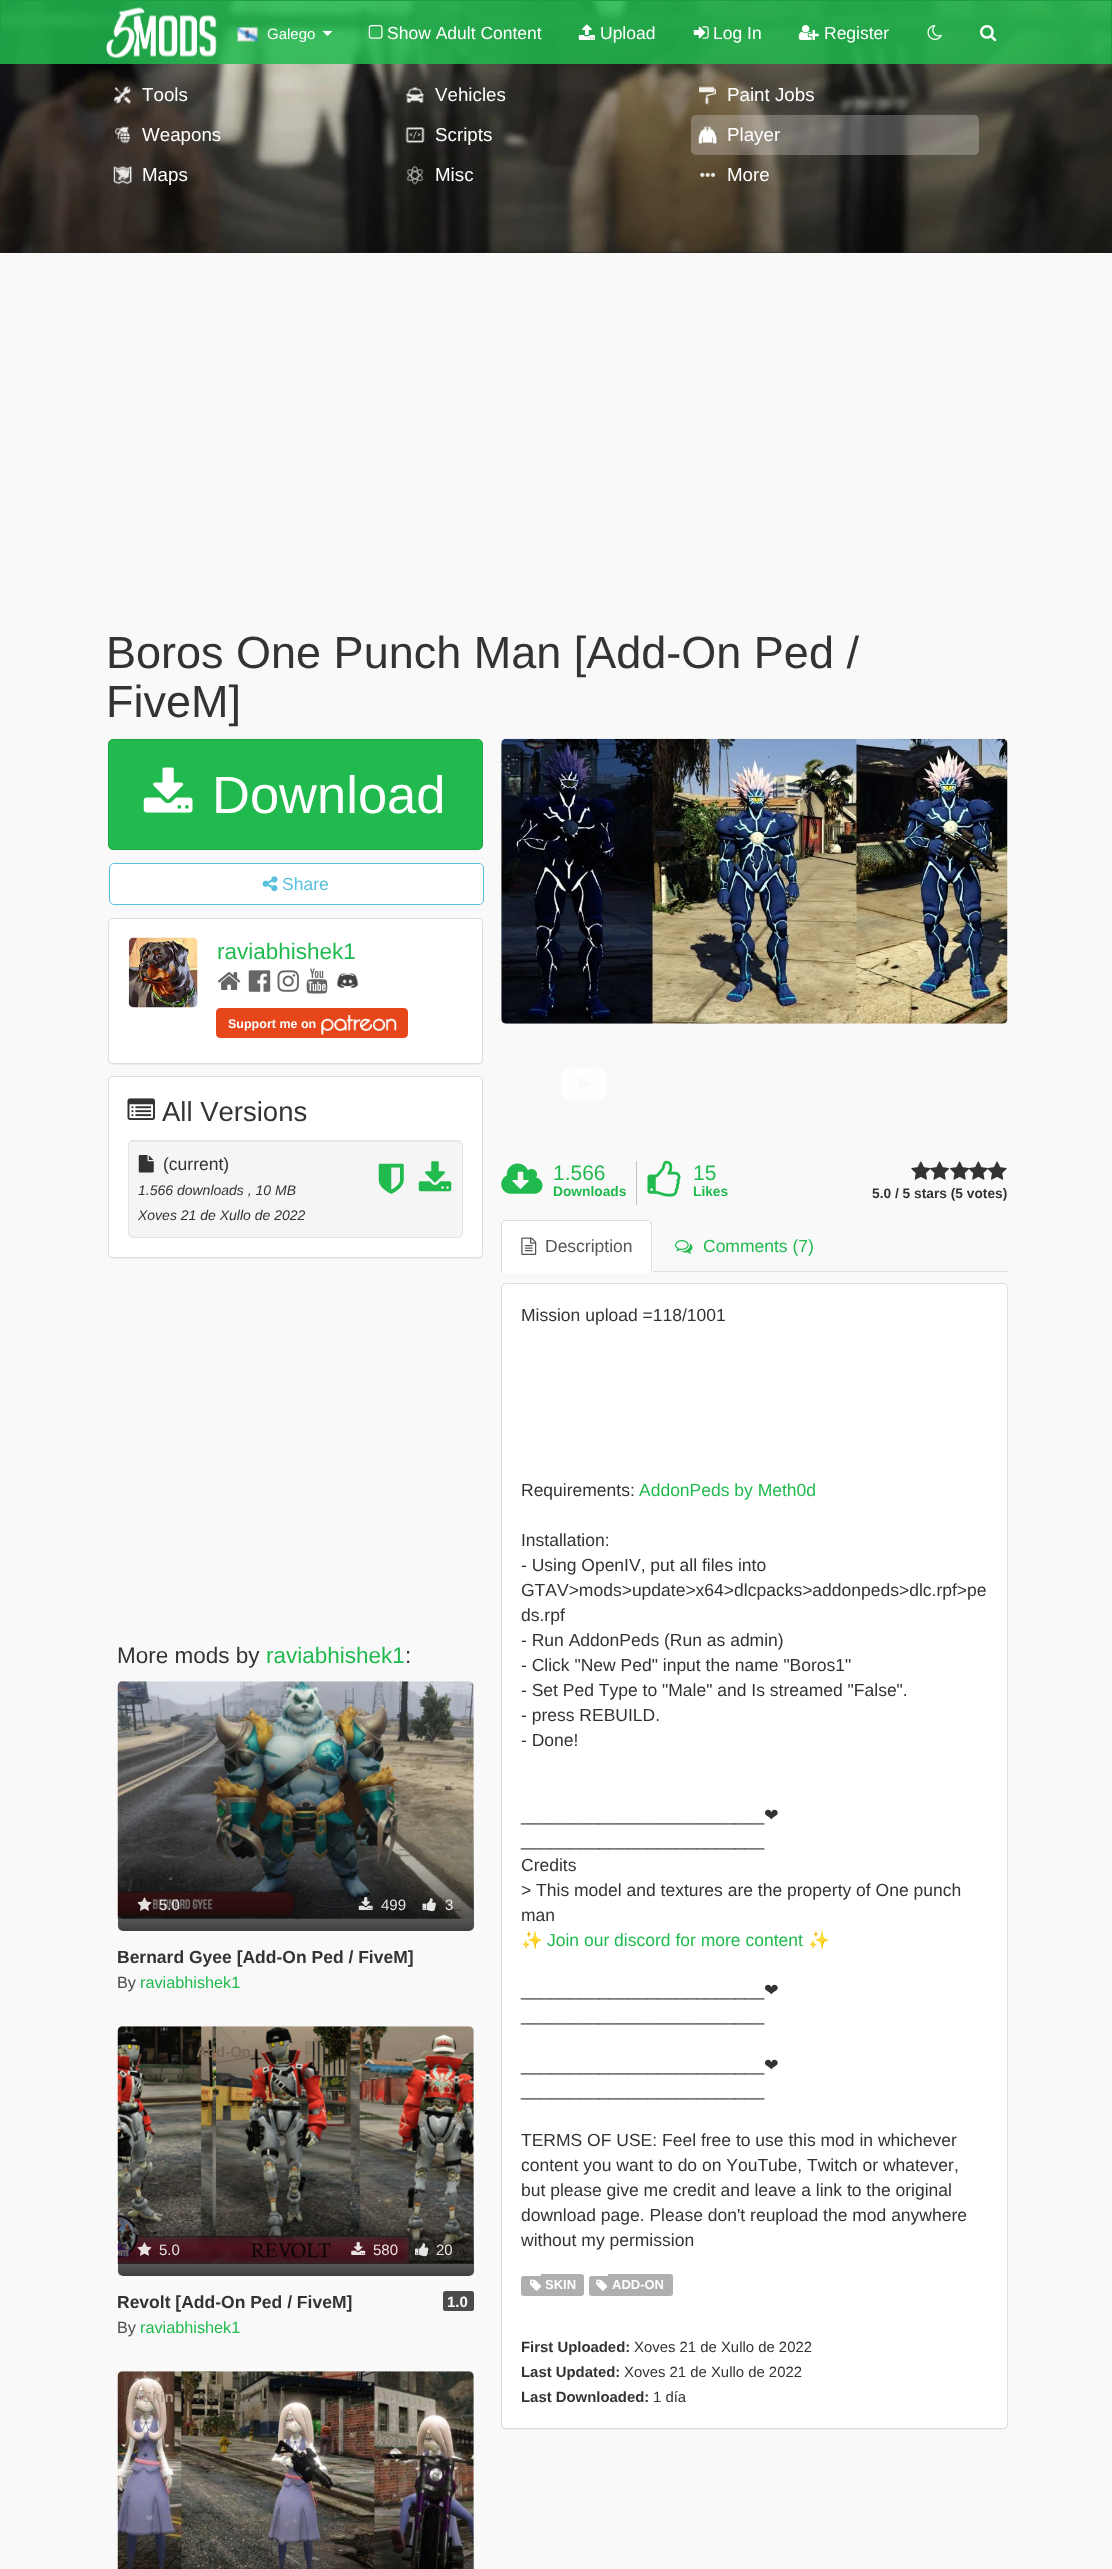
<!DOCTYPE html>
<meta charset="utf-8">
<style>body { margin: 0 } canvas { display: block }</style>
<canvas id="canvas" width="1112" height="2569"></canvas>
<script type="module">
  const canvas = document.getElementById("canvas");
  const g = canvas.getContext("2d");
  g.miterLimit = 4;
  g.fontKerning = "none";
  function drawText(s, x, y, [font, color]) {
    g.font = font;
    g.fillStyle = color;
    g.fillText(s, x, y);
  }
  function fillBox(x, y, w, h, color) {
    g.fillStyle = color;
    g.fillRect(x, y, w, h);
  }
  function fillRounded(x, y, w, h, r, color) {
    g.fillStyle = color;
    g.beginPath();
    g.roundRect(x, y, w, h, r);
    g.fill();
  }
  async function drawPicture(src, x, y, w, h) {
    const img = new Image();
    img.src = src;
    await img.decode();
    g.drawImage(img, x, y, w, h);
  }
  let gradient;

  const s1 = ["15px Liberation Sans", "#FFFFFF"];
  const s2 = ["17.5px Liberation Sans", "#FFFFFF"];
  const s3 = ["18.75px Liberation Sans", "#FFFFFF"];
  const s4 = ["45px Liberation Sans", "#333333"];
  const s5 = ["52.5px Liberation Sans", "#FFFFFF"];
  const s6 = ["17.5px Liberation Sans", "#5BC0DE"];
  const s7 = ["22.5px Liberation Sans", "#20BA4E"];
  const s8 = ["bold 12.5px Liberation Sans", "#FFFFFF"];
  const s9 = ["27.5px Liberation Sans", "#333333"];
  const s10 = ["17.5px Liberation Sans", "#333333"];
  const s11 = ["italic 14px Liberation Sans", "#333333"];
  const s12 = ["22.5px Liberation Sans", "#333333"];
  const s13 = ["15px Liberation Sans", "#EAE9E9"];
  const s14 = ["15px Liberation Sans", "#E4E4E4"];
  const s15 = ["bold 17.5px Liberation Sans", "#333333"];
  const s16 = ["16.25px Liberation Sans", "#4B4B4B"];
  const s17 = ["16.25px Liberation Sans", "#20BA4E"];
  const s18 = ["bold 15px Liberation Sans", "#796B5A"];
  const s19 = ["15px Liberation Sans", "#EAE3E4"];
  const s20 = ["bold 15px Liberation Sans", "#F9F9F9"];
  const s21 = ["bold 15px Liberation Sans", "#B19E8F"];
  const s22 = ["bold 15px Liberation Sans", "#554F41"];
  const s23 = ["21px Liberation Sans", "#20BA4E"];
  const s24 = ["bold 13.75px Liberation Sans", "#20BA4E"];
  const s25 = ["bold 13.75px Liberation Sans", "#333333"];
  const s26 = ["17.5px Liberation Sans", "#555555"];
  const s27 = ["17.5px Liberation Sans", "#20BA4E"];
  const s28 = ["17.5px DejaVu Sans", "#333333"];
  const s29 = ["17.5px Noto Color Emoji", "#20BA4E"];
  const s30 = ["bold 13px Liberation Sans", "#FFFFFF"];
  const s31 = ["bold 14.9px Liberation Sans", "#333333"];
  const s32 = ["14.9px Liberation Sans", "#333333"];

  fillBox(0, 0, 1112, 2569, "#F9F9F9");
  fillBox(0, 252, 1112, 1, "#222222");
  await drawPicture("pic9.png", 0, 1, 1112, 252);
  fillBox(1, 1, 1110, 63, "rgba(32, 186, 78, 0.85)");
  fillBox(0, 0, 1112, 1, "#1B9E42");
  fillBox(1111, 0, 1, 64, "#1B9E42");
  fillBox(0, 0, 1, 64, "#1B9E42");
  await drawPicture("pic1.png", 106, 7, 111, 51);
  await drawPicture("pic2.png", 237, 27, 21, 15);
  drawText("Galego", 267, 39, s1);
  g.beginPath();
  g.moveTo(322.5, 31);
  g.lineTo(332.5, 31);
  g.lineTo(327.5, 36);
  g.closePath();
  g.fill();
  await drawPicture("pic3.png", 368, 25, 15, 14);
  drawText("Show Adult Content", 387, 39, s2);
  await drawPicture("pic4.png", 578, 24, 17, 16);
  drawText("Upload", 600, 39, s2);
  await drawPicture("pic5.png", 693, 26, 16, 13);
  drawText("Log In", 713, 39, s2);
  await drawPicture("pic6.png", 798, 25, 21, 15);
  drawText("Register", 824, 39, s2);
  await drawPicture("pic7.png", 927, 25, 15, 15);
  await drawPicture("pic8.png", 980, 25, 17, 17);
  await drawPicture("pic10.png", 114, 86, 17, 18);
  drawText("Tools", 142, 101, s3);
  await drawPicture("pic11.png", 405, 87, 20, 16);
  drawText("Vehicles", 435, 101, s3);
  await drawPicture("pic12.png", 699, 86, 17, 19);
  drawText("Paint Jobs", 727, 101, s3);
  await drawPicture("pic13.png", 115, 126, 15, 18);
  drawText("Weapons", 142, 141, s3);
  await drawPicture("pic14.png", 405, 127, 20, 16);
  drawText("Scripts", 435, 141, s3);
  fillRounded(691, 115, 288, 40, 5, "rgba(255, 255, 255, 0.25)");
  await drawPicture("pic15.png", 698, 126, 19, 18);
  drawText("Player", 727, 141, s3);
  await drawPicture("pic16.png", 113, 166, 19, 19);
  drawText("Maps", 142, 181, s3);
  await drawPicture("pic17.png", 406, 165, 18, 20);
  drawText("Misc", 435, 181, s3);
  await drawPicture("pic18.png", 700, 172, 15, 5);
  drawText("More", 727, 181, s3);
  drawText("Boros One Punch Man [Add-On Ped /", 106, 668, s4);
  drawText("FiveM]", 106, 717, s4);
  g.fillStyle = "#20BA4E";
  g.beginPath();
  g.roundRect(108.5, 739.5, 374, 110, 4.5);
  g.fill();
  g.strokeStyle = "#1CA445";
  g.stroke();
  await drawPicture("pic19.png", 143, 767, 50, 46);
  drawText("Download", 212, 813, s5);
  g.beginPath();
  g.roundRect(109.5, 863.5, 374, 41, 4.5);
  g.fill();
  g.strokeStyle = "#5BC0DE";
  g.stroke();
  await drawPicture("pic20.png", 262, 876, 16, 16);
  drawText("Share", 282, 890, s6);
  g.fillStyle = "rgba(0, 0, 0, 0.05)";
  g.filter = "blur(0.5px)";
  g.beginPath();
  g.roundRect(108, 919, 375, 146, 5);
  g.fill();
  g.filter = "none";
  g.fillStyle = "#FFFFFF";
  g.beginPath();
  g.roundRect(108.5, 918.5, 374, 145, 4.5);
  g.fill();
  g.strokeStyle = "#DDDDDD";
  g.stroke();
  await drawPicture("pic21.png", 128, 937, 70, 71);
  drawText("raviabhishek1", 217, 959, s7);
  await drawPicture("pic22.png", 217, 972, 24, 18);
  await drawPicture("pic23.png", 248, 970, 23, 22);
  await drawPicture("pic24.png", 277, 970, 22, 22);
  await drawPicture("pic25.png", 306, 968, 22, 26);
  await drawPicture("pic26.png", 336, 973, 23, 15);
  g.fillStyle = "#E6461A";
  g.beginPath();
  g.roundRect(216.5, 1008.5, 191, 29, 3.5);
  g.fill();
  g.strokeStyle = "#E6461A";
  g.stroke();
  drawText("Support me on", 228, 1028, s8);
  await drawPicture("pic27.png", 321, 1015, 76, 20);
  g.fillStyle = "rgba(0, 0, 0, 0.05)";
  g.filter = "blur(0.5px)";
  g.beginPath();
  g.roundRect(108, 1078, 375, 181, 5);
  g.fill();
  g.filter = "none";
  g.fillStyle = "#FFFFFF";
  g.beginPath();
  g.roundRect(108.5, 1076.5, 374, 181, 4.5);
  g.fill();
  g.strokeStyle = "#DDDDDD";
  g.stroke();
  await drawPicture("pic28.png", 127, 1098, 28, 22);
  drawText("All Versions", 162, 1121, s9);
  fillRounded(128, 1140, 335, 98, 5, "#F5F5F5");
  g.fillStyle = "#E9E9E9";
  g.beginPath();
  g.moveTo(132, 1142);
  g.lineTo(458, 1142);
  g.bezierCurveTo(460, 1142, 461, 1144, 461, 1146);
  g.lineTo(461, 1145);
  g.bezierCurveTo(461, 1143, 459, 1141, 457, 1141);
  g.lineTo(133, 1141);
  g.bezierCurveTo(131, 1141, 129, 1143, 129, 1145);
  g.lineTo(129, 1146);
  g.bezierCurveTo(129, 1144, 130, 1142, 132, 1142);
  g.closePath();
  g.fill();
  g.beginPath();
  g.roundRect(128.5, 1140.5, 334, 97, 4.5);
  g.strokeStyle = "#E3E3E3";
  g.stroke();
  await drawPicture("pic29.png", 138, 1155, 16, 18);
  drawText("(current)", 163, 1170, s10);
  drawText("1.566 downloads , 10 MB", 138, 1195, s11);
  drawText("Xoves 21 de Xullo de 2022", 138, 1220, s11);
  await drawPicture("pic30.png", 378, 1163, 26, 31);
  await drawPicture("pic31.png", 418, 1161, 34, 31);
  drawText("More mods by", 117, 1663, s12);
  drawText("raviabhishek1", 266, 1663, s7);
  drawText(":", 405, 1663, s12);
  await drawPicture("pic32.png", 117, 1681, 357, 238);
  gradient = g.createLinearGradient(296, 1681, 296, 1931);
  gradient.addColorStop(0.5, "rgba(0, 0, 0, 0)");
  gradient.addColorStop(0.75, "rgba(0, 0, 0, 0.25)");
  gradient.addColorStop(1, "rgba(0, 0, 0, 0.75)");
  g.fillStyle = gradient;
  g.beginPath();
  g.roundRect(118, 1681, 356, 250, 5);
  g.fill();
  await drawPicture("pic33.png", 137, 1897, 15, 14);
  drawText("5.0", 159, 1910, s13);
  await drawPicture("pic34.png", 358, 1897, 15, 13);
  drawText("499", 381, 1910, s14);
  await drawPicture("pic35.png", 422, 1898, 14, 14);
  drawText("3", 445, 1910, s13);
  drawText("Bernard Gyee [Add-On Ped / FiveM]", 117, 1963, s15);
  drawText("By", 117, 1988, s16);
  drawText("raviabhishek1", 140, 1988, s17);
  await drawPicture("pic36.png", 117, 2026, 357, 238);
  gradient = g.createLinearGradient(296, 2026, 296, 2276);
  gradient.addColorStop(0.5, "rgba(0, 0, 0, 0)");
  gradient.addColorStop(0.75, "rgba(0, 0, 0, 0.25)");
  gradient.addColorStop(1, "rgba(0, 0, 0, 0.75)");
  g.fillStyle = gradient;
  g.beginPath();
  g.roundRect(118, 2026, 356, 250, 5);
  g.fill();
  drawText("Add-On", 196, 2057, s18);
  await drawPicture("pic37.png", 137, 2242, 15, 14);
  drawText("5.0", 159, 2255, s14);
  await drawPicture("pic38.png", 351, 2242, 15, 13);
  drawText("580", 373, 2255, s19);
  await drawPicture("pic39.png", 415, 2243, 14, 14);
  drawText("20", 436, 2255, s13);
  drawText("Revolt [Add-On Ped / FiveM]", 117, 2308, s15);
  fillRounded(443, 2291, 31, 20, 2.5, "#4B4B4B");
  drawText("1.0", 447, 2307, s20);
  drawText("By", 117, 2333, s16);
  drawText("raviabhishek1", 140, 2333, s17);
  await drawPicture("pic40.png", 117, 2371, 357, 198);
  drawText("Skin", 142, 2402, s21);
  drawText("Add-On", 196, 2402, s22);
  gradient = g.createLinearGradient(296, 2371, 296, 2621);
  gradient.addColorStop(0.5, "rgba(0, 0, 0, 0)");
  gradient.addColorStop(0.75, "rgba(0, 0, 0, 0.25)");
  gradient.addColorStop(1, "rgba(0, 0, 0, 0.75)");
  g.fillStyle = gradient;
  g.fillRect(118, 2501, 356, 68);
  await drawPicture("pic41.png", 501, 738, 507, 286);
  await drawPicture("pic42.png", 562, 1068, 44, 31);
  await drawPicture("pic43.png", 501, 1163, 42, 31);
  fillBox(636, 1161, 1, 44, "#C2C2C2");
  drawText("1.566", 553, 1180, s23);
  drawText("Downloads", 553, 1196, s24);
  await drawPicture("pic44.png", 647, 1160, 34, 37);
  drawText("15", 693, 1180, s23);
  drawText("Likes", 693, 1196, s24);
  await drawPicture("pic45.png", 911, 1161, 20, 19);
  await drawPicture("pic46.png", 930, 1161, 20, 19);
  await drawPicture("pic47.png", 950, 1161, 20, 19);
  await drawPicture("pic48.png", 969, 1161, 19, 19);
  await drawPicture("pic49.png", 987, 1161, 20, 19);
  drawText("5.0 / 5 stars (5 votes)", 872, 1198, s25);
  fillBox(653, 1271, 355, 1, "#DDDDDD");
  g.fillStyle = "#FFFFFF";
  g.beginPath();
  g.roundRect(501, 1220, 152, 53, [5, 5, 0, 0]);
  g.fill();
  g.fillStyle = "#DDDDDD";
  g.beginPath();
  g.moveTo(506, 1220);
  g.bezierCurveTo(505, 1220, 503, 1220, 503, 1221);
  g.lineTo(503, 1222);
  g.lineTo(506, 1221);
  g.lineTo(649, 1221);
  g.lineTo(650, 1222);
  g.lineTo(651, 1222);
  g.bezierCurveTo(650, 1221, 649, 1220, 648, 1220);
  g.closePath();
  g.fill();
  g.beginPath();
  g.moveTo(651, 1222);
  g.bezierCurveTo(652, 1222, 652, 1224, 652, 1225);
  g.lineTo(652, 1272);
  g.lineTo(651, 1271);
  g.lineTo(651, 1225);
  g.lineTo(650, 1222);
  g.closePath();
  g.fill();
  g.beginPath();
  g.moveTo(501, 1223);
  g.lineTo(503, 1221);
  g.lineTo(503, 1222);
  g.lineTo(502, 1224);
  g.lineTo(502, 1271);
  g.lineTo(503, 1271);
  g.lineTo(502, 1272);
  g.lineTo(501, 1272);
  g.closePath();
  g.fill();
  await drawPicture("pic50.png", 521, 1237, 16, 18);
  drawText("Description", 545, 1252, s26);
  await drawPicture("pic51.png", 675, 1240, 18, 14);
  drawText("Comments (7)", 703, 1252, s27);
  g.fillStyle = "rgba(0, 0, 0, 0.05)";
  g.filter = "blur(0.5px)";
  g.beginPath();
  g.roundRect(501, 1284, 507, 1146, 5);
  g.fill();
  g.filter = "none";
  g.fillStyle = "#FFFFFF";
  g.beginPath();
  g.roundRect(501.5, 1283.5, 506, 1145, 4.5);
  g.fill();
  g.strokeStyle = "#DDDDDD";
  g.stroke();
  drawText("Mission upload =118/1001", 521, 1321, s10);
  drawText("Requirements:", 521, 1496, s10);
  drawText("AddonPeds by Meth0d", 639, 1496, s27);
  drawText("Installation:", 521, 1546, s10);
  drawText("- Using OpenIV, put all files into", 521, 1571, s10);
  drawText("GTAV>mods>update>x64>dlcpacks>addonpeds>dlc.rpf>pe", 521, 1596, s10);
  drawText("ds.rpf", 521, 1621, s10);
  drawText("- Run AddonPeds (Run as admin)", 521, 1646, s10);
  drawText("- Click \"New Ped\" input the name \"Boros1\"", 521, 1671, s10);
  drawText("- Set Ped Type to \"Male\" and Is streamed \"False\".", 521, 1696, s10);
  drawText("- press REBUILD.", 521, 1721, s10);
  drawText("- Done!", 521, 1746, s10);
  drawText("❤", 764, 1821, s28);
  drawText("_________________________", 521, 1821, s10);
  drawText("_________________________", 521, 1846, s10);
  drawText("Credits", 521, 1871, s10);
  drawText("> This model and textures are the property of One punch", 521, 1896, s10);
  drawText("man", 521, 1921, s10);
  g.save();
  g.beginPath();
  g.rect(521, 1303, 467, 950);
  g.clip();
  drawText("✨", 521, 1946, s29);
  g.restore();
  drawText("Join our discord for more content", 547, 1946, s27);
  drawText("✨", 808, 1946, s29);
  drawText("❤", 764, 1996, s28);
  drawText("_________________________", 521, 1996, s10);
  drawText("_________________________", 521, 2021, s10);
  drawText("❤", 764, 2071, s28);
  drawText("_________________________", 521, 2071, s10);
  drawText("_________________________", 521, 2096, s10);
  drawText("TERMS OF USE: Feel free to use this mod in whichever", 521, 2146, s10);
  drawText("content you want to do on YouTube, Twitch or whatever,", 521, 2171, s10);
  drawText("but please give me credit and leave a link to the original", 521, 2196, s10);
  drawText("download page. Please don't reupload the mod anywhere", 521, 2221, s10);
  drawText("without my permission", 521, 2246, s10);
  g.fillStyle = "#AFAFAF";
  g.beginPath();
  g.roundRect(521, 2276, 20, 20, [3, 0, 0, 3]);
  g.fill();
  g.beginPath();
  g.roundRect(541, 2274, 43, 22, [0, 3, 3, 0]);
  g.fill();
  await drawPicture("pic52.png", 530, 2279, 11, 12);
  drawText("SKIN", 545, 2289, s30);
  g.fillStyle = "#AFAFAF";
  g.beginPath();
  g.roundRect(589, 2276, 19, 20, [3, 0, 0, 3]);
  g.fill();
  g.beginPath();
  g.roundRect(608, 2274, 65, 22, [0, 3, 3, 0]);
  g.fill();
  await drawPicture("pic53.png", 596, 2279, 12, 12);
  drawText("ADD-ON", 612, 2289, s30);
  drawText("First Uploaded:", 521, 2352, s31);
  drawText("Xoves 21 de Xullo de 2022", 634, 2352, s32);
  drawText("Last Updated:", 521, 2377, s31);
  drawText("Xoves 21 de Xullo de 2022", 624, 2377, s32);
  drawText("Last Downloaded:", 521, 2402, s31);
  drawText("1 día", 653, 2402, s32);
</script>
